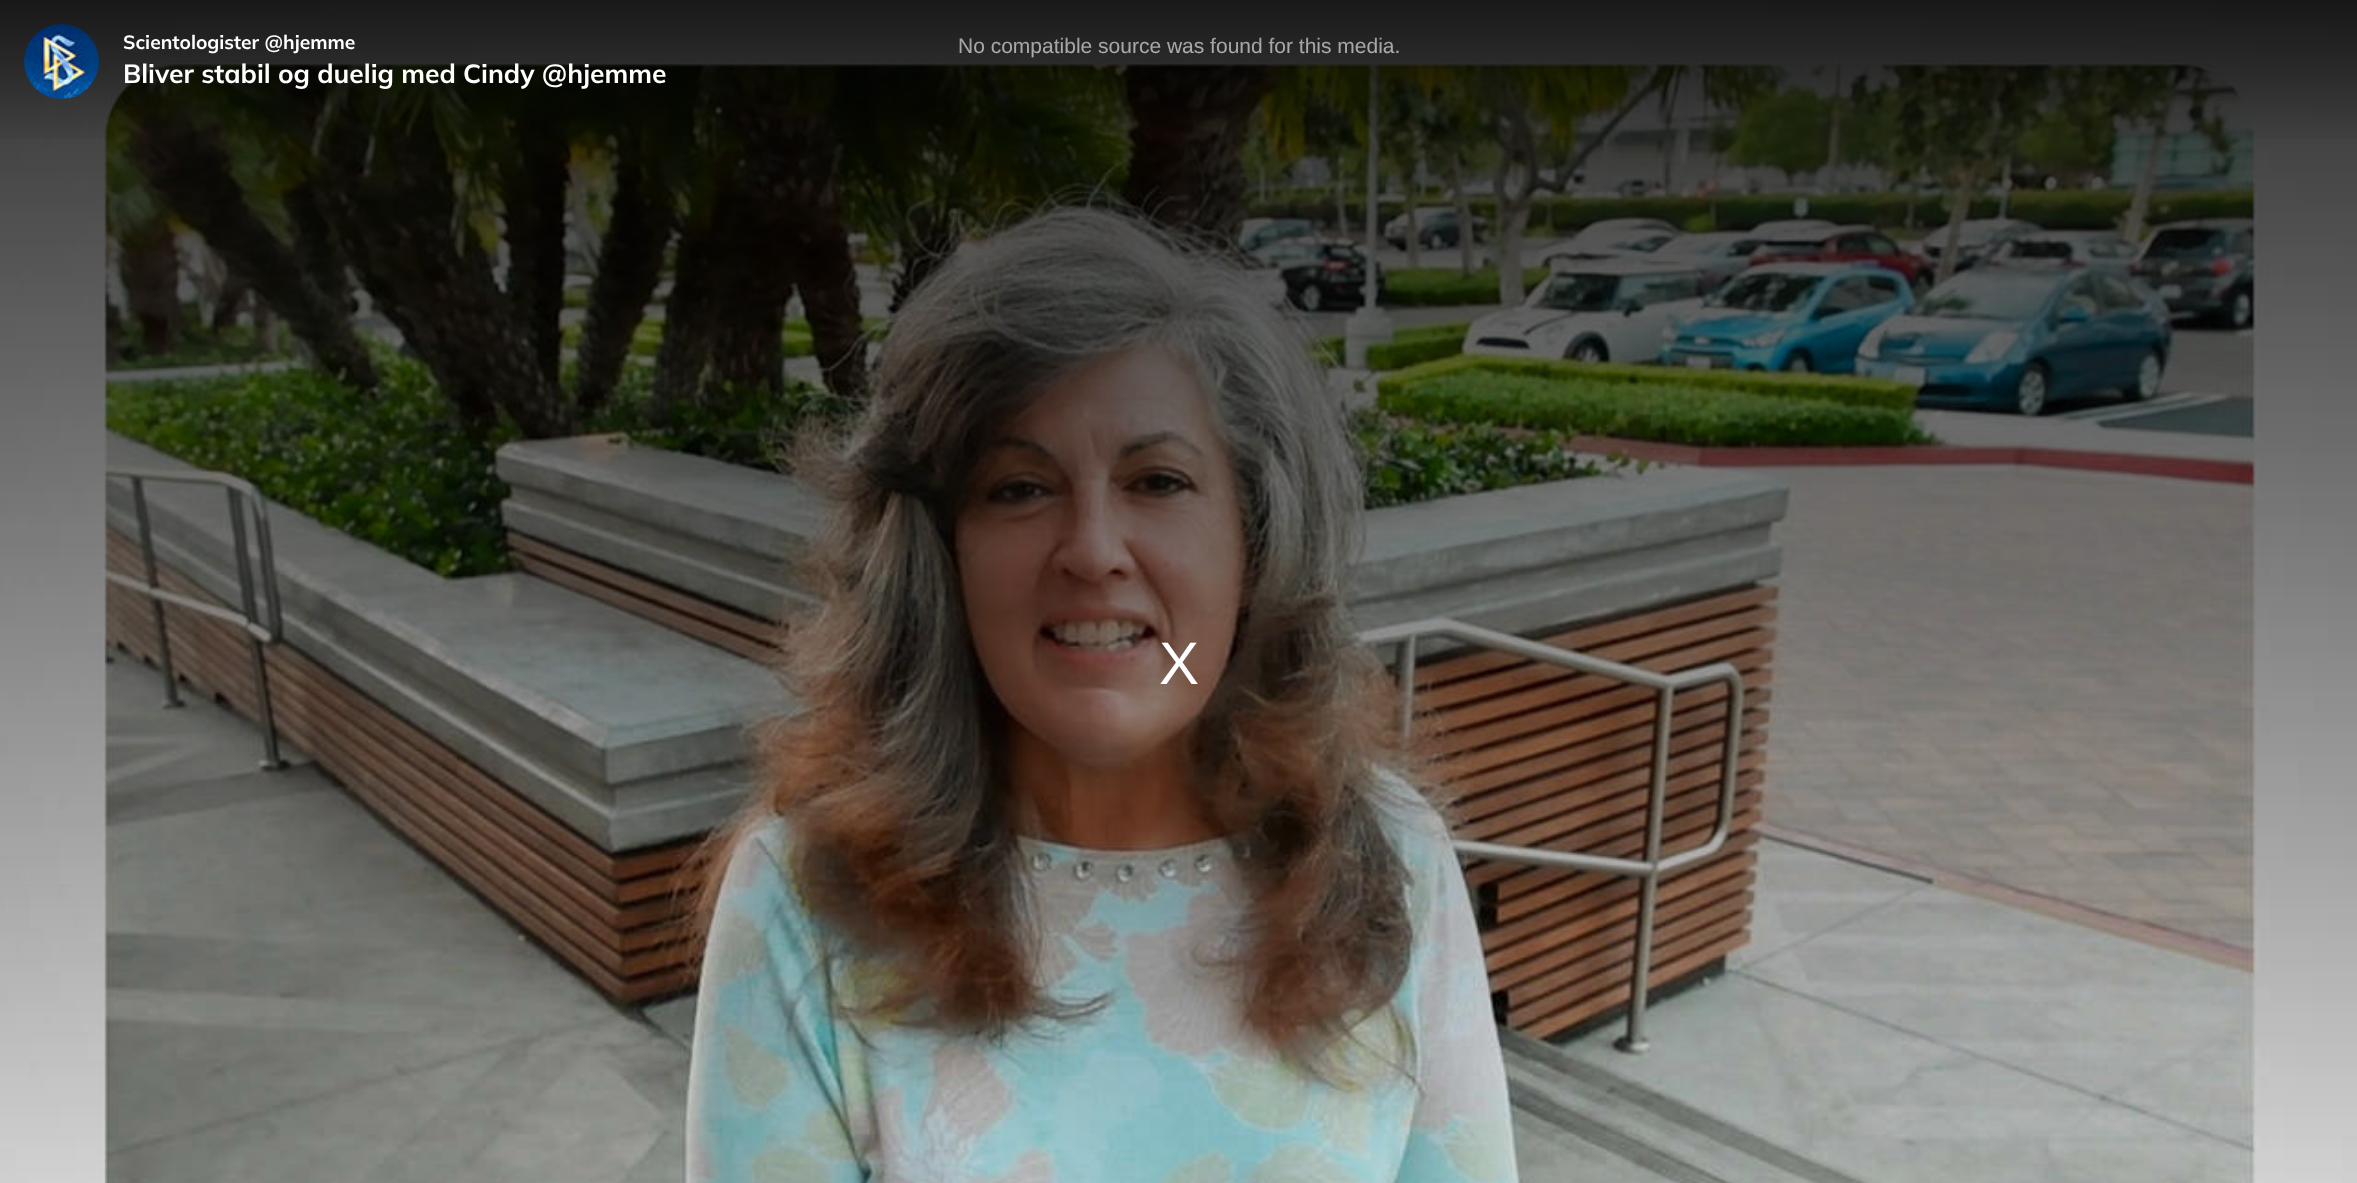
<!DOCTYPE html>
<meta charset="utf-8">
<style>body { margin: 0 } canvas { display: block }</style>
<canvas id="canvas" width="2357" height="1183"></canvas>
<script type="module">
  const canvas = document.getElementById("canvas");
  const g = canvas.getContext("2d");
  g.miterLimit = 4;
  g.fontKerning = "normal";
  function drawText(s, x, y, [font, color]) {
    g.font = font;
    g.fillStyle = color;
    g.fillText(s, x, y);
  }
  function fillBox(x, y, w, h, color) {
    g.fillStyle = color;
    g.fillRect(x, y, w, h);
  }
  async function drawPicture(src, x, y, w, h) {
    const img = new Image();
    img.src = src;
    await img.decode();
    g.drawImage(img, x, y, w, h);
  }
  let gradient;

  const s1 = ["21px Liberation Sans", "#FFFFFF"];
  const s2 = ["bold 19.25px Mulish", "#FFFFFF"];
  const s3 = ["bold 26.4px Mulish", "#FFFFFF"];
  const s4 = ["60px Liberation Sans", "#FFFFFF"];

  fillBox(0, 0, 2357, 1183, "#FFFFFF");
  await drawPicture("pic1.png", 0, 0, 2357, 1183);
  drawText("No compatible source was found for this media.", 958, 53, s1);
  gradient = g.createLinearGradient(1179, 0, 1179, 150);
  gradient.addColorStop(0, "rgba(0, 0, 0, 0.5)");
  gradient.addColorStop(1, "rgba(0, 0, 0, 0)");
  g.fillStyle = gradient;
  g.fillRect(0, 0, 2357, 139);
  await drawPicture("pic2.png", 24, 24, 75, 75);
  drawText("Scientologister @hjemme", 123, 49, s2);
  drawText("Bliver stabil og duelig med Cindy @hjemme", 123, 83, s3);
  drawText("X", 1159, 684, s4);
</script>
